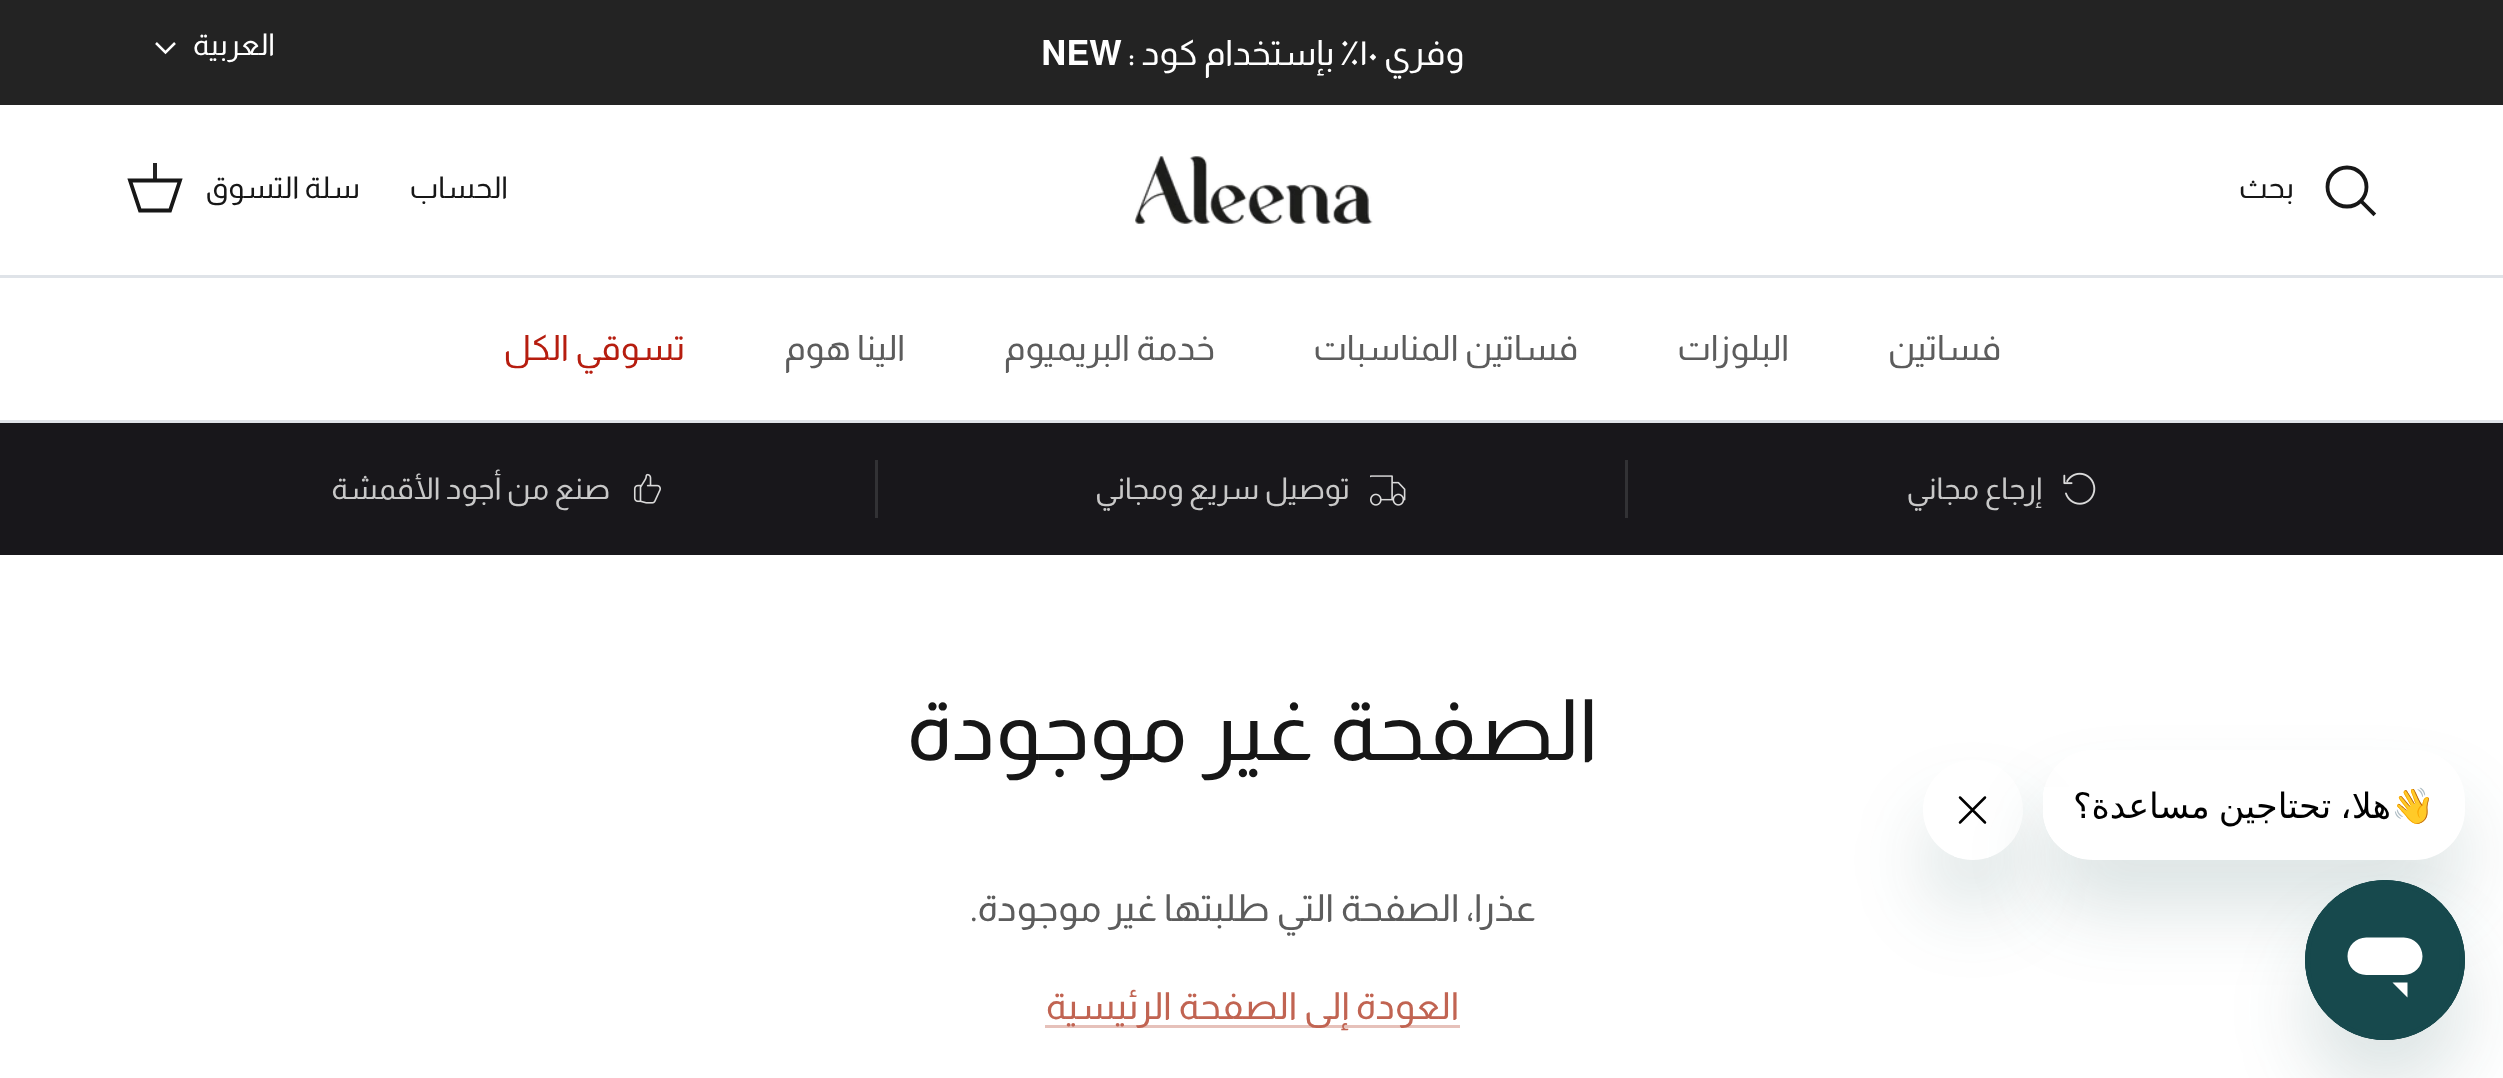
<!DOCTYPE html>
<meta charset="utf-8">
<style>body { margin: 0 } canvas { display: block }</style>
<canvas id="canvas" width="2503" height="1078"></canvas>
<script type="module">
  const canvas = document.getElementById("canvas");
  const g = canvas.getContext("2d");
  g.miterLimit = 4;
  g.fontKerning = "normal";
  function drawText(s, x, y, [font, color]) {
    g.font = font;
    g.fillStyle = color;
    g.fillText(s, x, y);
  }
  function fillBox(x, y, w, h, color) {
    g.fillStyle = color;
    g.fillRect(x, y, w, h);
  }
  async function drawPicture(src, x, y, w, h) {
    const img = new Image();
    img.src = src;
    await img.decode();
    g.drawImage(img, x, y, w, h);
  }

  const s1 = ["35px Almarai", "#FFFFFF"];
  const s2 = ["bold 35px Almarai", "#FFFFFF"];
  const s3 = ["30px Almarai", "#FFFFFF"];
  const s4 = ["30px Almarai", "#171717"];
  const s5 = ["35px Almarai", "#5C5C5C"];
  const s6 = ["35px Almarai", "#B61D0F"];
  const s7 = ["30px Almarai", "#C8C8C8"];
  const s8 = ["85px Almarai", "#171717"];
  const s9 = ["37.5px Almarai", "#5C5C5C"];
  const s10 = ["37.5px Almarai", "#C16452"];

  fillBox(0, 0, 2503, 1078, "#FFFFFF");
  fillBox(0, 0, 2503, 105, "#232323");
  g.direction = "rtl";
  drawText("وفري", 1464, 65, s1);
  g.direction = "ltr";
  drawText("١٠", 1359, 65, s1);
  g.direction = "rtl";
  drawText("٪ بإستخدام كود :", 1359, 65, s1);
  g.direction = "ltr";
  drawText("NEW", 1041, 65, s2);
  g.direction = "rtl";
  drawText("العربية", 275, 55, s3);
  g.beginPath();
  g.moveTo(175, 43);
  g.lineTo(165.5, 52.5);
  g.lineTo(156, 43);
  g.strokeStyle = "#FFFFFF";
  g.lineWidth = 2.5;
  g.stroke();
  fillBox(0, 275, 2503, 3, "#DFE3E8");
  g.beginPath();
  g.arc(2347, 187, 19.5, 0, Math.PI * 2);
  g.strokeStyle = "#171717";
  g.lineWidth = 3.8;
  g.stroke();
  drawText("بحث", 2294, 198, s4);
  g.beginPath();
  g.moveTo(2362.5, 202.5);
  g.lineTo(2373.5, 213.5);
  g.lineCap = "square";
  g.stroke();
  await drawPicture("pic1.png", 1135, 156, 238, 68);
  drawText("الحساب", 508, 198, s4);
  drawText("سلة التسوق", 360, 198, s4);
  g.beginPath();
  g.moveTo(130, 180.5);
  g.lineTo(180, 180.5);
  g.lineTo(170, 210.5);
  g.lineTo(140, 210.5);
  g.closePath();
  g.lineCap = "butt";
  g.stroke();
  fillBox(153, 163, 4, 19, "rgba(23, 23, 23, 0.95)");
  fillBox(0, 420, 2503, 3, "#DFE3E8");
  drawText("فساتين", 2001, 360, s5);
  drawText("البلوزات", 1789, 360, s5);
  drawText("فساتين المناسبات", 1578, 360, s5);
  drawText("خدمة البريميوم", 1215, 360, s5);
  drawText("الينا هوم", 905, 360, s5);
  drawText("تسوقي الكل", 685, 360, s6);
  fillBox(0, 423, 2503, 132, "#18171B");
  await drawPicture("pic2.png", 2063, 472, 33, 33);
  drawText("إرجاع مجاني", 2042, 499, s7);
  fillBox(1625, 460, 3, 58, "#323235");
  await drawPicture("pic3.png", 1370, 475, 36, 31);
  drawText("توصيل سريع ومجاني", 1350, 499, s7);
  fillBox(875, 460, 3, 58, "#323235");
  await drawPicture("pic4.png", 633, 473, 28, 31);
  drawText("صنع من أجود الأقمشة", 610, 499, s7);
  g.save();
  g.beginPath();
  g.moveTo(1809, 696);
  g.lineTo(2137, 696);
  g.lineTo(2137, 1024);
  g.lineTo(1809, 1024);
  g.closePath();
  g.moveTo(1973, 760);
  g.bezierCurveTo(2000.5, 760, 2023, 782.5, 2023, 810);
  g.bezierCurveTo(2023, 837.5, 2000.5, 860, 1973, 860);
  g.bezierCurveTo(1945.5, 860, 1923, 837.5, 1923, 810);
  g.bezierCurveTo(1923, 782.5, 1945.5, 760, 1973, 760);
  g.closePath();
  g.clip("evenodd");
  g.fillStyle = "rgba(23, 73, 77, 0.15)";
  g.filter = "blur(37.5px)";
  g.beginPath();
  g.roundRect(1923, 810, 100, 100, 50);
  g.fill();
  g.filter = "none";
  g.restore();
  await drawPicture("pic6.png", 1954, 796, 37, 62);
  g.save();
  g.beginPath();
  g.moveTo(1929, 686);
  g.lineTo(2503, 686);
  g.lineTo(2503, 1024);
  g.lineTo(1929, 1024);
  g.closePath();
  g.moveTo(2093, 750);
  g.lineTo(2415, 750);
  g.bezierCurveTo(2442.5, 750, 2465, 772.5, 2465, 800);
  g.lineTo(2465, 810);
  g.bezierCurveTo(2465, 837.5, 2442.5, 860, 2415, 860);
  g.lineTo(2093, 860);
  g.bezierCurveTo(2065.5, 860, 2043, 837.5, 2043, 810);
  g.lineTo(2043, 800);
  g.bezierCurveTo(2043, 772.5, 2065.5, 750, 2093, 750);
  g.closePath();
  g.clip("evenodd");
  g.fillStyle = "rgba(23, 73, 77, 0.15)";
  g.filter = "blur(37.5px)";
  g.beginPath();
  g.roundRect(2043, 800, 422, 110, 50);
  g.fill();
  g.filter = "none";
  g.restore();
  await drawPicture("pic5.png", 2043, 787, 386, 72);
  g.fillStyle = "rgba(23, 73, 77, 0.15)";
  g.filter = "blur(37.5px)";
  g.beginPath();
  g.roundRect(2305, 930, 160, 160, 80);
  g.fill();
  g.filter = "none";
  await drawPicture("pic7.png", 2305, 880, 160, 160);
  drawText("الصفحة غير موجودة", 1598, 760, s8);
  drawText("عذرا، الصفحة التي طلبتها غير موجودة.", 1536, 921, s9);
  fillBox(1045, 1025, 415, 3, "#E6C1BA");
  drawText("العودة إلى الصفحة الرئيسية", 1459, 1019, s10);
</script>
